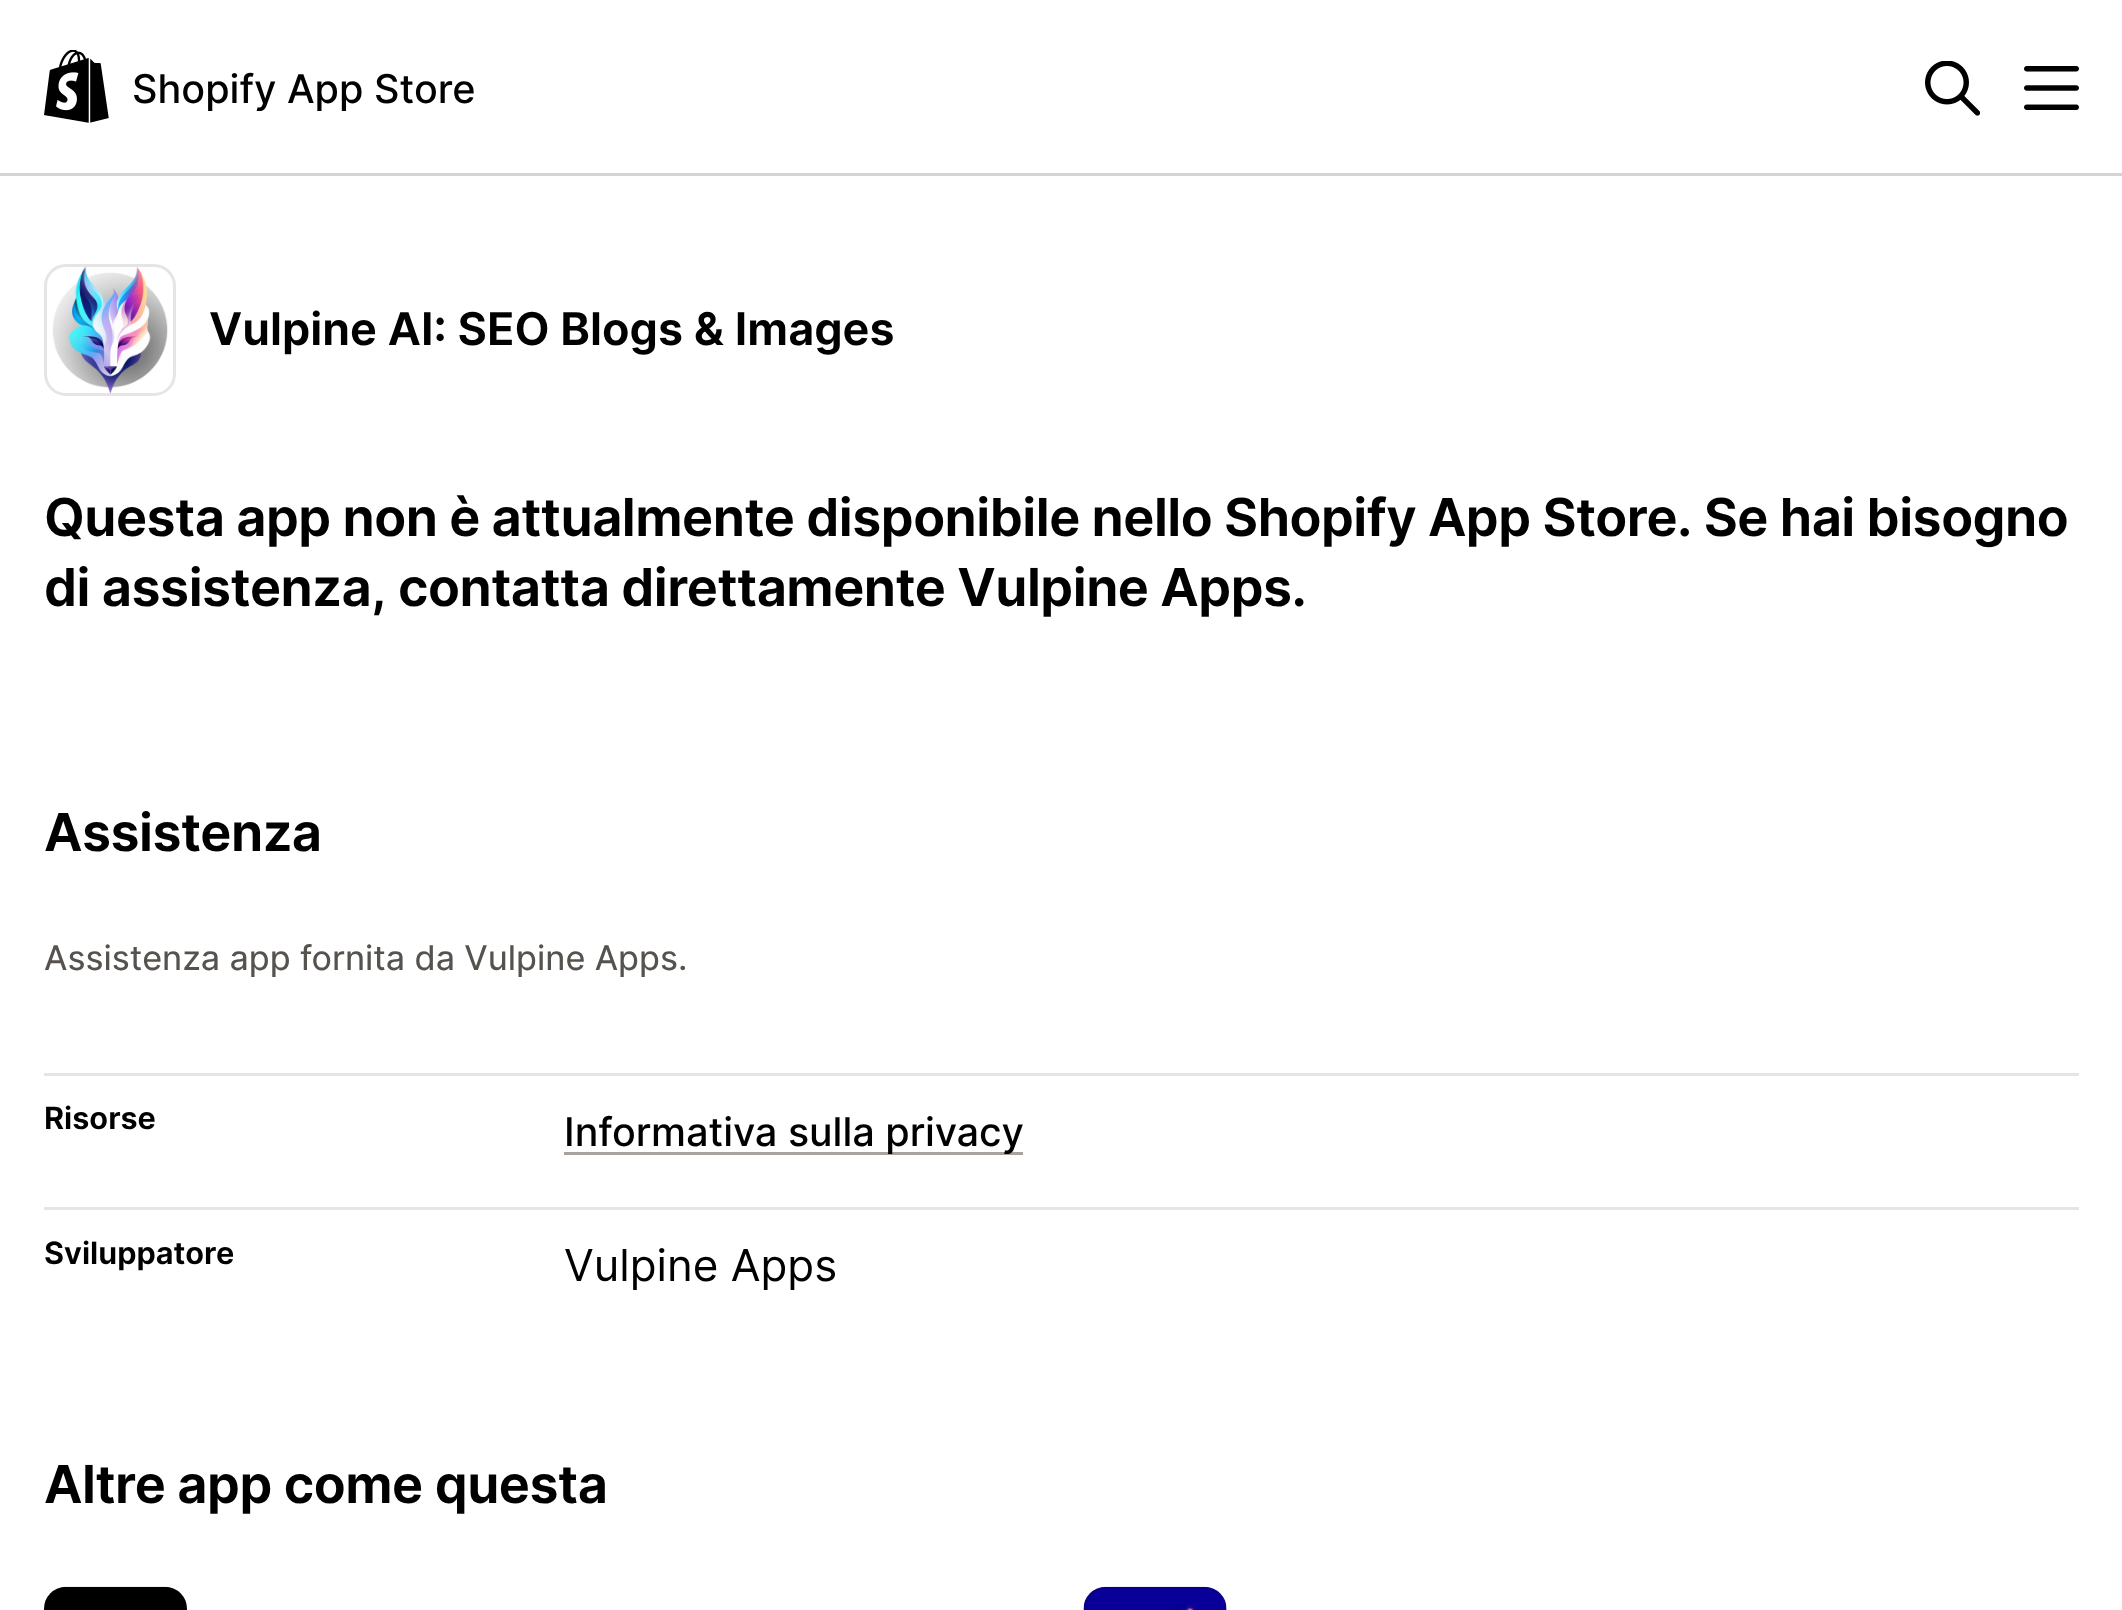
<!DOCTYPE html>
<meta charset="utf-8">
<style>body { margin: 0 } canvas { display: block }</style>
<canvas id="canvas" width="2122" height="1610"></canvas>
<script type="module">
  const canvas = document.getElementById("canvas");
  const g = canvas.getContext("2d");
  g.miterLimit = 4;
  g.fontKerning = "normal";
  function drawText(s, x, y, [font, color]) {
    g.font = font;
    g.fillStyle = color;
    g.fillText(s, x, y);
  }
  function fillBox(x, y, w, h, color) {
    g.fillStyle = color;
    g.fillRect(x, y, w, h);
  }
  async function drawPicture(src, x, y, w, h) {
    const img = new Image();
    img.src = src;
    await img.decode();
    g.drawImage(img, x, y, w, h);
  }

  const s1 = ["500 39.6px Inter", "#000000"];
  const s2 = ["600 45.1px Inter", "#000000"];
  const s3 = ["600 52.35px Inter", "#000000"];
  const s4 = ["34.1px Inter", "#56524E"];
  const s5 = ["600 30.75px Inter", "#000000"];
  const s6 = ["44px 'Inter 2'", "#000000"];

  fillBox(0, 0, 2122, 1610, "#FFFFFF");
  fillBox(0, 173, 2122, 3, "#D6D3D1");
  await drawPicture("pic1.png", 44, 50, 65, 73);
  drawText("Shopify App Store", 132, 103, s1);
  await drawPicture("pic2.png", 1925, 61, 55, 55);
  await drawPicture("pic3.png", 2024, 66, 55, 44);
  await drawPicture("pic4.png", 52, 266, 116, 128);
  g.beginPath();
  g.roundRect(45.5, 265.5, 129, 129, 20.5);
  g.strokeStyle = "rgba(0, 0, 0, 0.1)";
  g.lineWidth = 3;
  g.stroke();
  drawText("Vulpine AI: SEO Blogs & Images", 209, 345, s2);
  g.letterSpacing = "-0.52px";
  g.wordSpacing = "-0.25px";
  drawText("Questa app non è attualmente disponibile nello Shopify App Store. Se hai bisogno", 44, 536, s3);
  drawText("di assistenza, contatta direttamente Vulpine Apps.", 44, 606, s3);
  g.wordSpacing = "0px";
  drawText("Assistenza", 44, 851, s3);
  g.letterSpacing = "0px";
  drawText("Assistenza app fornita da Vulpine Apps.", 44, 970, s4);
  fillBox(44, 1073, 2035, 3, "#E7E5E4");
  drawText("Risorse", 44, 1129, s5);
  fillBox(564, 1152, 459, 3, "#A8A29F");
  drawText("Informativa sulla privacy", 564, 1146, s1);
  fillBox(44, 1207, 2035, 3, "#E7E5E4");
  drawText("Sviluppatore", 44, 1264, s5);
  drawText("Vulpine Apps", 564, 1281, s6);
  g.letterSpacing = "-0.52px";
  drawText("Altre app come questa", 44, 1503, s3);
  await drawPicture("pic5.png", 44, 1586, 143, 24);
  g.beginPath();
  g.roundRect(45.5, 1588.5, 140, 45, 20.5);
  g.stroke();
  await drawPicture("pic6.png", 1083, 1586, 144, 24);
  g.beginPath();
  g.roundRect(1085.5, 1588.5, 140, 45, 20.5);
  g.stroke();
</script>
